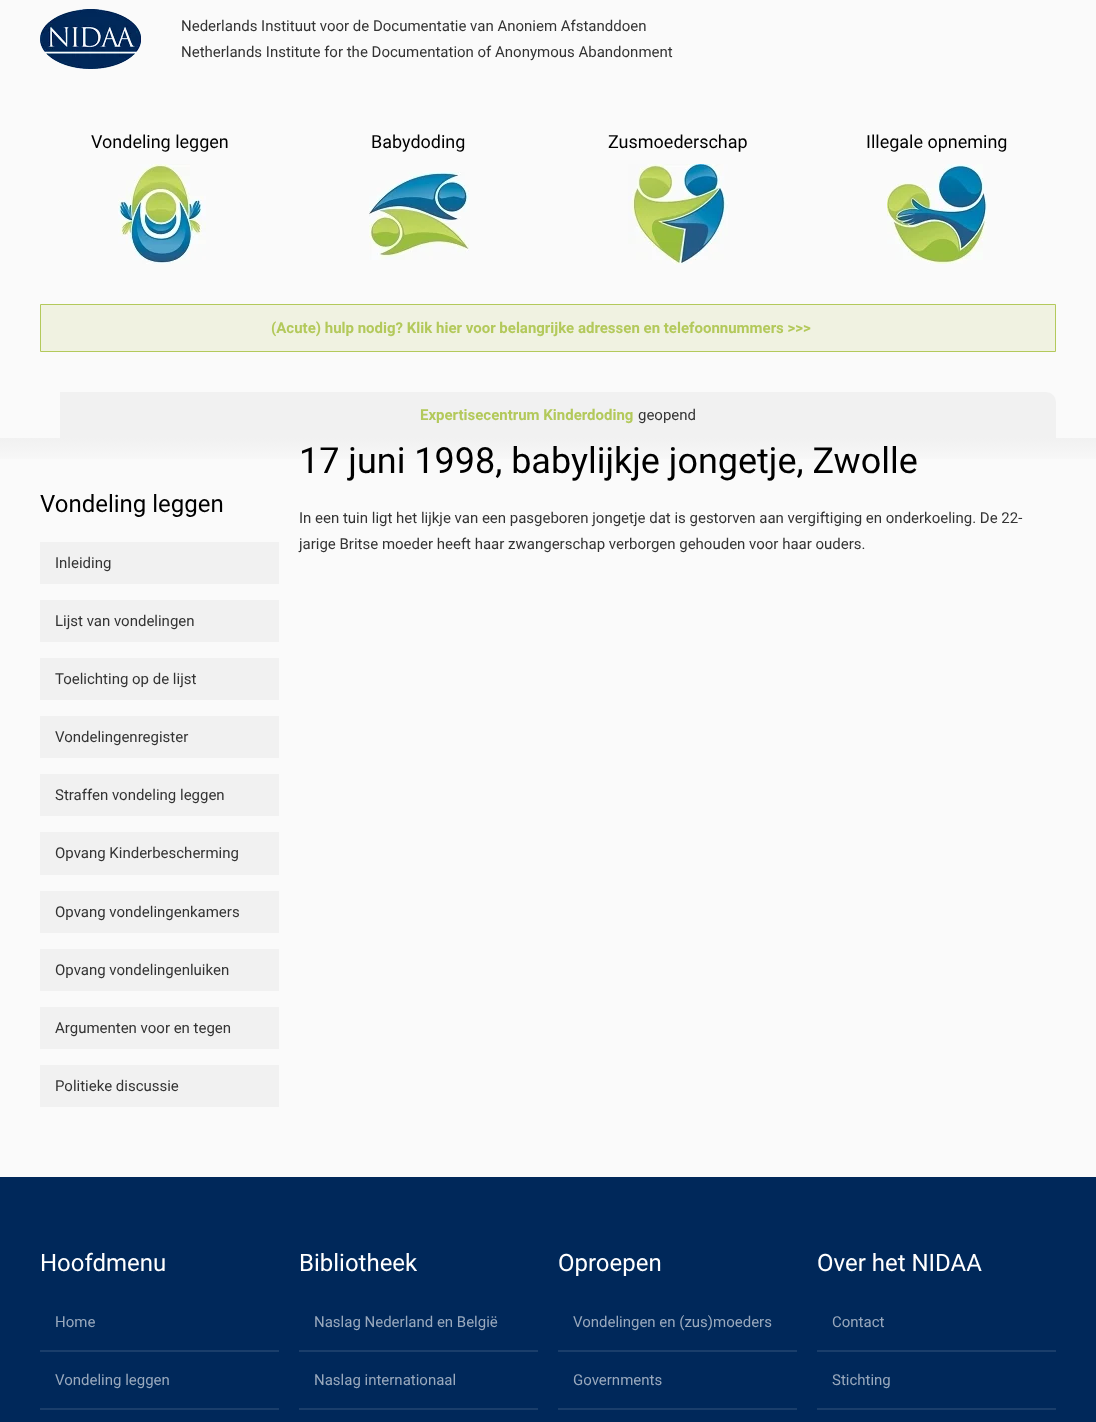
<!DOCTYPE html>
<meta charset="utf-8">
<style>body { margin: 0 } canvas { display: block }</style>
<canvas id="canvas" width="1096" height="1422"></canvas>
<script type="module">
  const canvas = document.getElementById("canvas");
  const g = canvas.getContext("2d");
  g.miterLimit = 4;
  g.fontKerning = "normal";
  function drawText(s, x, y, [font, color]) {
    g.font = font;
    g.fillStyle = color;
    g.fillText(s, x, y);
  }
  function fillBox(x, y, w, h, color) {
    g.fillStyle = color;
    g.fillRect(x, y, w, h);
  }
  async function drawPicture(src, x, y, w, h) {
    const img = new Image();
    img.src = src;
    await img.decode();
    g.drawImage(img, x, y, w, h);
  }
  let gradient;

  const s1 = ["15px Roboto", "#333333"];
  const s2 = ["18px Roboto", "#000000"];
  const s3 = ["bold 15px Roboto", "#B3C95B"];
  const s4 = ["24px Roboto", "#000000"];
  const s5 = ["36px Roboto", "#000000"];
  const s6 = ["24px Roboto", "#FFFFFF"];
  const s7 = ["15px Roboto", "#99A9BD"];

  fillBox(0, 0, 1096, 1422, "#FAFAFA");
  await drawPicture("pic1.png", 40, 9, 101, 60);
  drawText("Nederlands Instituut voor de Documentatie van Anoniem Afstanddoen", 181, 31, s1);
  drawText("Netherlands Institute for the Documentation of Anonymous Abandonment", 181, 57, s1);
  drawText("Vondeling leggen", 91, 148, s2);
  await drawPicture("pic2.png", 118, 164, 88, 100);
  drawText("Babydoding", 371, 148, s2);
  await drawPicture("pic3.png", 369, 171, 100, 89);
  drawText("Zusmoederschap", 608, 148, s2);
  await drawPicture("pic4.png", 628, 164, 100, 100);
  drawText("Illegale opneming", 866, 148, s2);
  await drawPicture("pic5.png", 887, 164, 100, 100);
  g.fillStyle = "#F0F2E1";
  g.beginPath();
  g.rect(40.5, 304.5, 1015, 47);
  g.fill();
  g.strokeStyle = "#B3C95B";
  g.stroke();
  drawText("(Acute) hulp nodig? Klik hier voor belangrijke adressen en telefoonnummers >>>", 271, 333, s3);
  g.fillStyle = "#F1F1F1";
  g.beginPath();
  g.roundRect(60, 392, 996, 46, [0, 10, 0, 0]);
  g.fill();
  drawText("Expertisecentrum Kinderdoding", 420, 420, s3);
  drawText("geopend", 638, 420, s1);
  gradient = g.createLinearGradient(548, 438, 548, 1177);
  gradient.addColorStop(0, "#F1F1F1");
  gradient.addColorStop(0.04, "#FAFAFA");
  gradient.addColorStop(1, "#FAFAFA");
  g.fillStyle = gradient;
  g.fillRect(0, 438, 1096, 21);
  drawText("Vondeling leggen", 40, 512, s4);
  fillBox(40, 542, 239, 42, "#F1F1F1");
  drawText("Inleiding", 55, 568, s1);
  fillBox(40, 600, 239, 42, "#F1F1F1");
  drawText("Lijst van vondelingen", 55, 626, s1);
  fillBox(40, 658, 239, 42, "#F1F1F1");
  drawText("Toelichting op de lijst", 55, 684, s1);
  fillBox(40, 716, 239, 42, "#F1F1F1");
  drawText("Vondelingenregister", 55, 742, s1);
  fillBox(40, 774, 239, 42, "#F1F1F1");
  drawText("Straffen vondeling leggen", 55, 800, s1);
  fillBox(40, 832, 239, 43, "#F1F1F1");
  drawText("Opvang Kinderbescherming", 55, 858, s1);
  fillBox(40, 891, 239, 42, "#F1F1F1");
  drawText("Opvang vondelingenkamers", 55, 917, s1);
  fillBox(40, 949, 239, 42, "#F1F1F1");
  drawText("Opvang vondelingenluiken", 55, 975, s1);
  fillBox(40, 1007, 239, 42, "#F1F1F1");
  drawText("Argumenten voor en tegen", 55, 1033, s1);
  fillBox(40, 1065, 239, 42, "#F1F1F1");
  drawText("Politieke discussie", 55, 1091, s1);
  drawText("17 juni 1998, babylijkje jongetje, Zwolle", 299, 473, s5);
  drawText("In een tuin ligt het lijkje van een pasgeboren jongetje dat is gestorven aan vergiftiging en onderkoeling. De 22-", 299, 523, s1);
  drawText("jarige Britse moeder heeft haar zwangerschap verborgen gehouden voor haar ouders.", 299, 549, s1);
  fillBox(0, 1177, 1096, 245, "#00285A");
  drawText("Hoofdmenu", 40, 1271, s6);
  drawText("Home", 55, 1327, s7);
  fillBox(40, 1350, 239, 2, "#1A3E6B");
  drawText("Vondeling leggen", 55, 1385, s7);
  fillBox(40, 1408, 239, 2, "#1A3E6B");
  drawText("Bibliotheek", 299, 1271, s6);
  drawText("Naslag Nederland en België", 314, 1327, s7);
  fillBox(299, 1350, 239, 2, "#1A3E6B");
  drawText("Naslag internationaal", 314, 1385, s7);
  fillBox(299, 1408, 239, 2, "#1A3E6B");
  drawText("Oproepen", 558, 1271, s6);
  drawText("Vondelingen en (zus)moeders", 573, 1327, s7);
  fillBox(558, 1350, 239, 2, "#1A3E6B");
  drawText("Governments", 573, 1385, s7);
  fillBox(558, 1408, 239, 2, "#1A3E6B");
  drawText("Over het NIDAA", 817, 1271, s6);
  drawText("Contact", 832, 1327, s7);
  fillBox(817, 1350, 239, 2, "#1A3E6B");
  drawText("Stichting", 832, 1385, s7);
  fillBox(817, 1408, 239, 2, "#1A3E6B");
</script>
